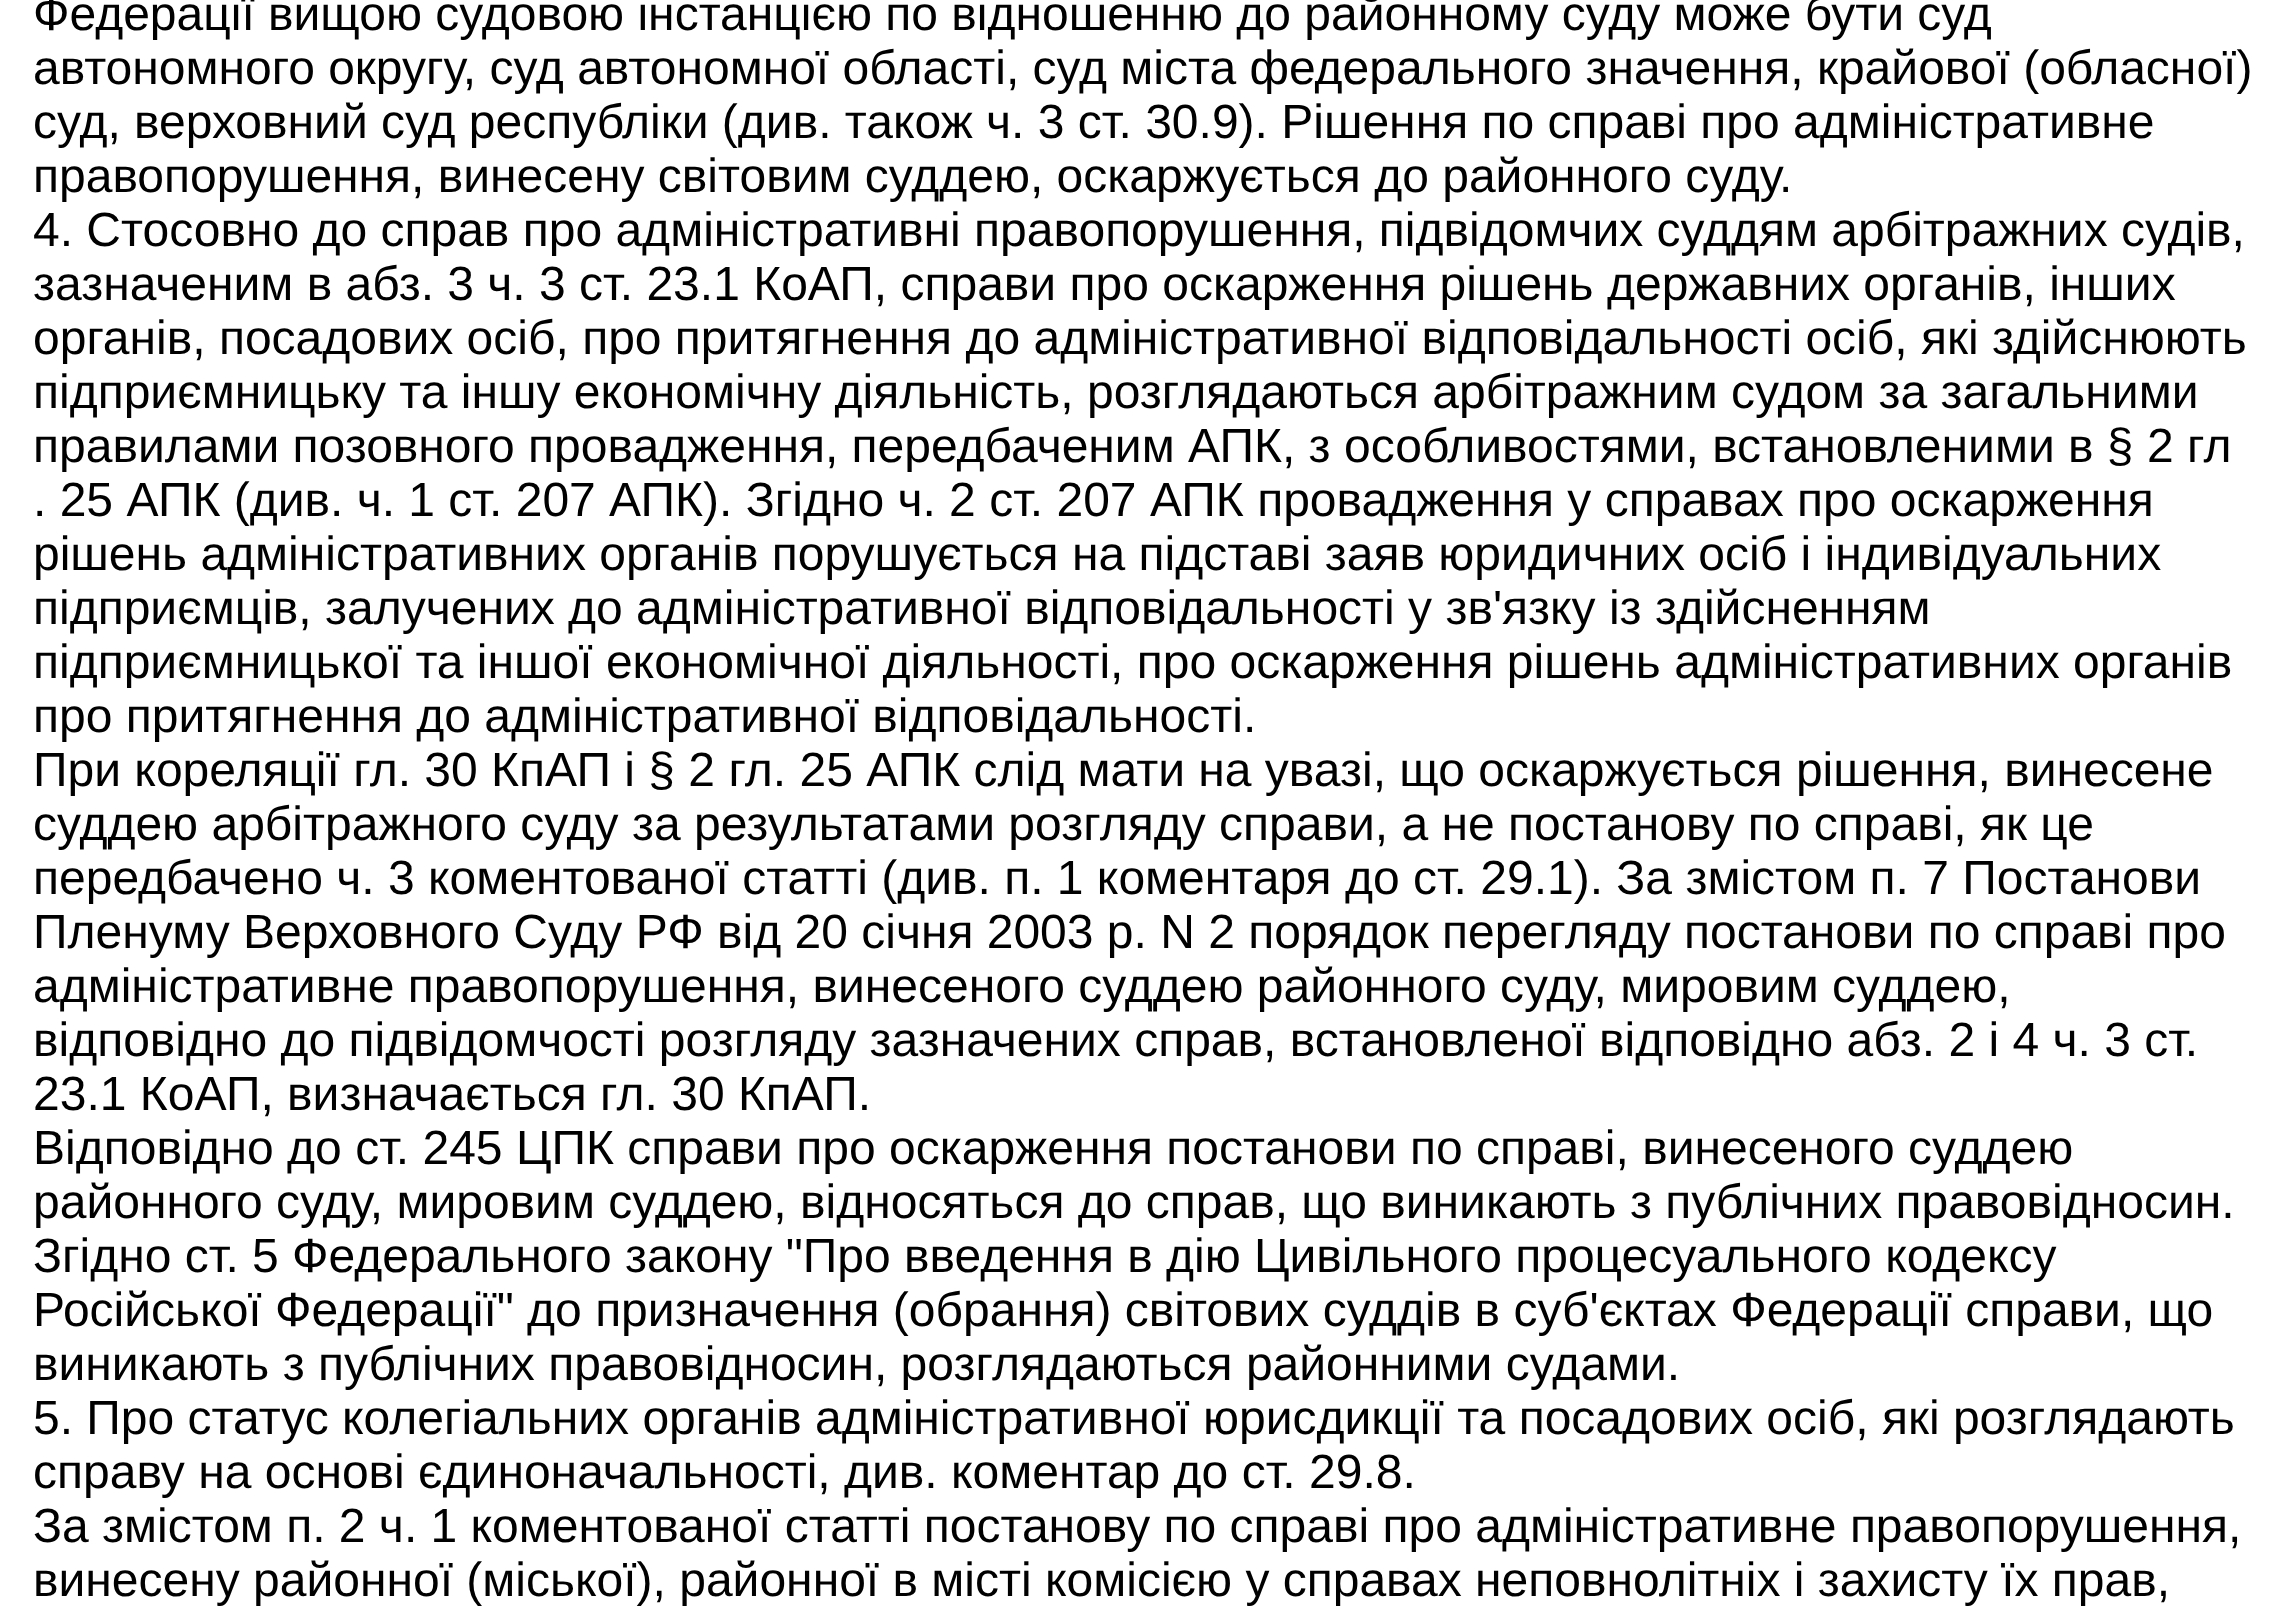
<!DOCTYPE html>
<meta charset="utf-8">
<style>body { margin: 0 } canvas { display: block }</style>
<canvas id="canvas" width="2289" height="1622"></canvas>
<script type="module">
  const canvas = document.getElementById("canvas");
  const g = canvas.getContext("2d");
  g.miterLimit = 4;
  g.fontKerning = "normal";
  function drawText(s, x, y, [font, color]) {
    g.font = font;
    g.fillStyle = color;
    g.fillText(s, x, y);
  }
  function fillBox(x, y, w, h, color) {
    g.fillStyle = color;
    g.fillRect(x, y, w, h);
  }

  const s1 = ["48px Liberation Sans", "#000000"];

  fillBox(0, 0, 2289, 1622, "#FFFFFF");
  drawText("Федерації вищою судовою інстанцією по відношенню до районному суду може бути суд", 33, 30, s1);
  drawText("автономного округу, суд автономної області, суд міста федерального значення, крайової (обласної)", 33, 84, s1);
  drawText("суд, верховний суд республіки (див. також ч. 3 ст. 30.9). Рішення по справі про адміністративне", 33, 138, s1);
  drawText("правопорушення, винесену світовим суддею, оскаржується до районного суду.", 33, 192, s1);
  drawText("4. Стосовно до справ про адміністративні правопорушення, підвідомчих суддям арбітражних судів,", 33, 246, s1);
  drawText("зазначеним в абз. 3 ч. 3 ст. 23.1 КоАП, справи про оскарження рішень державних органів, інших", 33, 300, s1);
  drawText("органів, посадових осіб, про притягнення до адміністративної відповідальності осіб, які здійснюють", 33, 354, s1);
  drawText("підприємницьку та іншу економічну діяльність, розглядаються арбітражним судом за загальними", 33, 408, s1);
  drawText("правилами позовного провадження, передбаченим АПК, з особливостями, встановленими в § 2 гл", 33, 462, s1);
  drawText(". 25 АПК (див. ч. 1 ст. 207 АПК). Згідно ч. 2 ст. 207 АПК провадження у справах про оскарження", 33, 516, s1);
  drawText("рішень адміністративних органів порушується на підставі заяв юридичних осіб і індивідуальних", 33, 570, s1);
  drawText("підприємців, залучених до адміністративної відповідальності у зв'язку із здійсненням", 33, 624, s1);
  drawText("підприємницької та іншої економічної діяльності, про оскарження рішень адміністративних органів", 33, 678, s1);
  drawText("про притягнення до адміністративної відповідальності.", 33, 732, s1);
  drawText("При кореляції гл. 30 КпАП і § 2 гл. 25 АПК слід мати на увазі, що оскаржується рішення, винесене", 33, 786, s1);
  drawText("суддею арбітражного суду за результатами розгляду справи, а не постанову по справі, як це", 33, 840, s1);
  drawText("передбачено ч. 3 коментованої статті (див. п. 1 коментаря до ст. 29.1). За змістом п. 7 Постанови", 33, 894, s1);
  drawText("Пленуму Верховного Суду РФ від 20 січня 2003 р. N 2 порядок перегляду постанови по справі про", 33, 948, s1);
  drawText("адміністративне правопорушення, винесеного суддею районного суду, мировим суддею,", 33, 1002, s1);
  drawText("відповідно до підвідомчості розгляду зазначених справ, встановленої відповідно абз. 2 і 4 ч. 3 ст.", 33, 1056, s1);
  drawText("23.1 КоАП, визначається гл. 30 КпАП.", 33, 1110, s1);
  drawText("Відповідно до ст. 245 ЦПК справи про оскарження постанови по справі, винесеного суддею", 33, 1164, s1);
  drawText("районного суду, мировим суддею, відносяться до справ, що виникають з публічних правовідносин.", 33, 1218, s1);
  drawText("Згідно ст. 5 Федерального закону \"Про введення в дію Цивільного процесуального кодексу", 33, 1272, s1);
  drawText("Російської Федерації\" до призначення (обрання) світових суддів в суб'єктах Федерації справи, що", 33, 1326, s1);
  drawText("виникають з публічних правовідносин, розглядаються районними судами.", 33, 1380, s1);
  drawText("5. Про статус колегіальних органів адміністративної юрисдикції та посадових осіб, які розглядають", 33, 1434, s1);
  drawText("справу на основі єдиноначальності, див. коментар до ст. 29.8.", 33, 1488, s1);
  drawText("За змістом п. 2 ч. 1 коментованої статті постанову по справі про адміністративне правопорушення,", 33, 1542, s1);
  drawText("винесену районної (міської), районної в місті комісією у справах неповнолітніх і захисту їх прав,", 33, 1596, s1);
</script>
